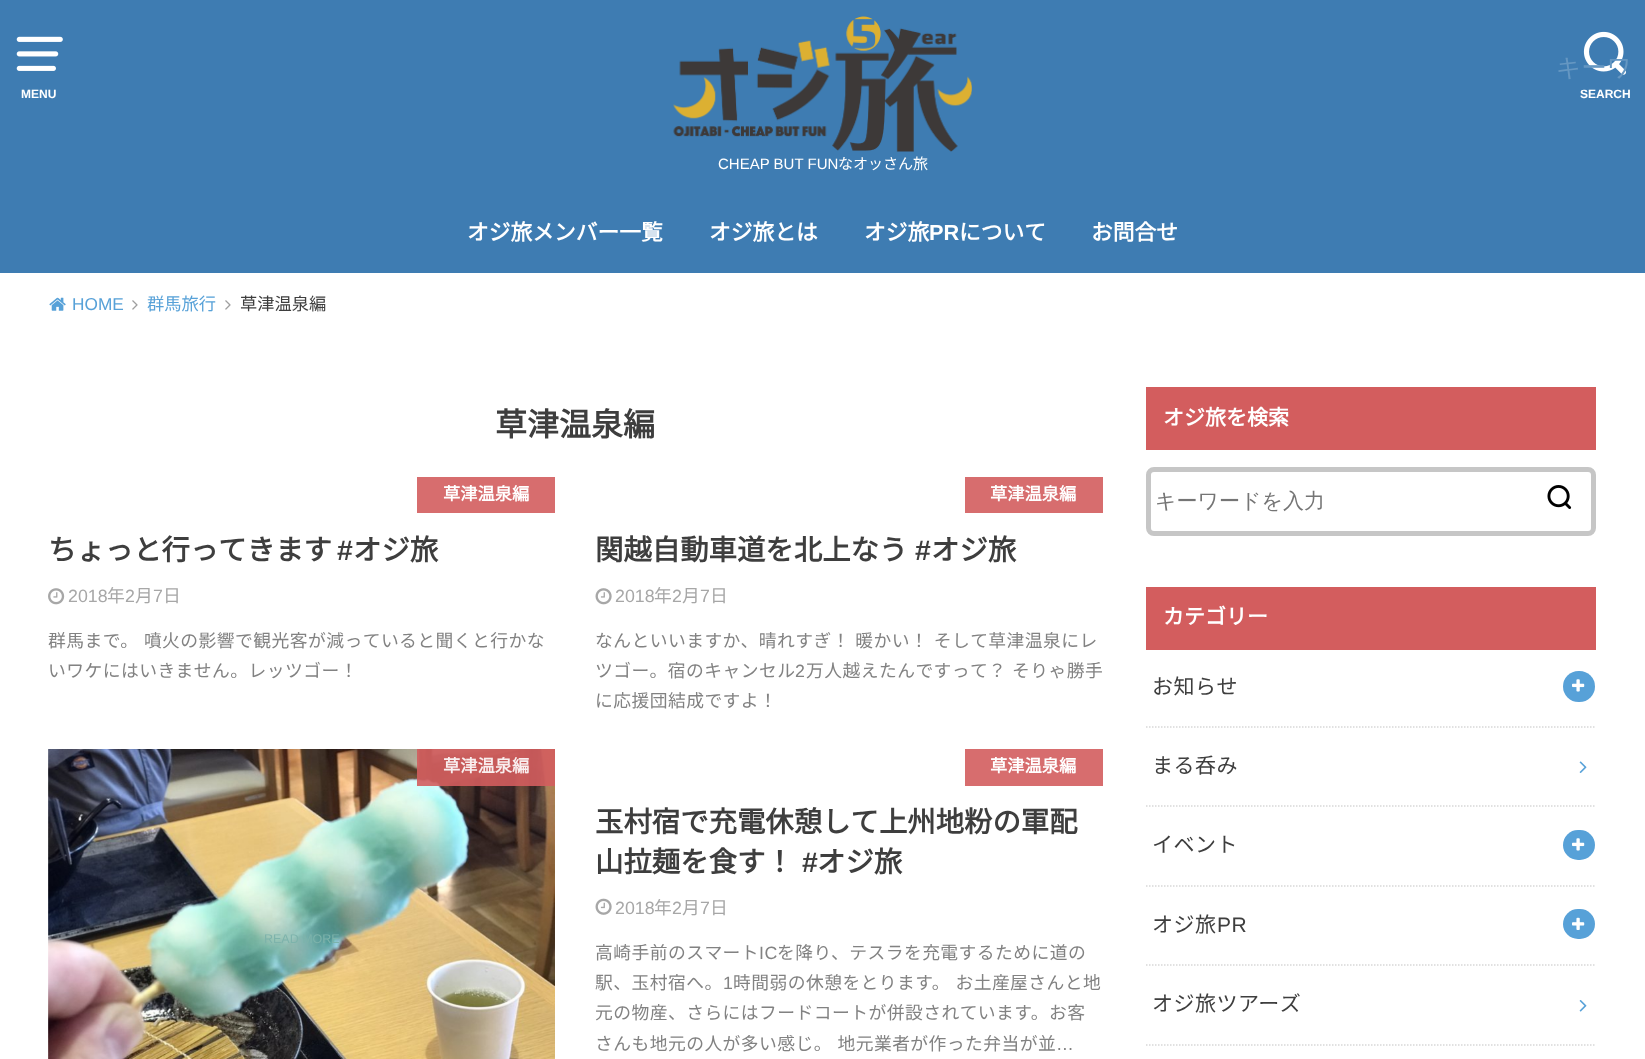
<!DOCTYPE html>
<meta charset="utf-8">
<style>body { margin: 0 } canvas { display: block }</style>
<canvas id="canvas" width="1645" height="1059"></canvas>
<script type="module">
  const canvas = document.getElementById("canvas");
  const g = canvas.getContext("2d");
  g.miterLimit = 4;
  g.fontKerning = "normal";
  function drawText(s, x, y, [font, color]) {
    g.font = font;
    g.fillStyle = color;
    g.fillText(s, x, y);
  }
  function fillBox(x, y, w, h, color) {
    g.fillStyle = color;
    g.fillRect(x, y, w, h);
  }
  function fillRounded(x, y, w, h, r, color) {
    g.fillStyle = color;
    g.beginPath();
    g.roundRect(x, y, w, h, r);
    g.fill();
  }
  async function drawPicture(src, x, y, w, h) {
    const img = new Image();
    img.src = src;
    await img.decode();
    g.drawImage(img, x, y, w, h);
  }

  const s1 = ["bold 12px Liberation Sans", "#FFFFFF"];
  const s2 = ["500 25px WenQuanYi Zen Hei", "#6597C2"];
  const s3 = ["15px Liberation Sans", "#FFFFFF"];
  const s4 = ["100 15px Noto Sans JP", "#FFFFFF"];
  const s5 = ["bold 21.75px Noto Sans JP", "#FFFFFF"];
  const s6 = ["bold 21.75px Liberation Sans", "#FFFFFF"];
  const s7 = ["17.25px Liberation Sans", "#57A1D8"];
  const s8 = ["100 17.25px Noto Sans JP", "#57A1D8"];
  const s9 = ["100 17.25px Noto Sans JP", "#3E3E3E"];
  const s10 = ["bold 32px Noto Sans JP", "#3E3E3E"];
  const s11 = ["bold 17.25px Noto Sans JP", "#FFFFFF"];
  const s12 = ["bold 28.4px Noto Sans JP", "#3E3E3E"];
  const s13 = ["bold 28.4px Liberation Sans", "#3E3E3E"];
  const s14 = ["17.8px Liberation Sans", "#A7A7A7"];
  const s15 = ["100 17.8px Noto Sans JP", "#A7A7A7"];
  const s16 = ["100 17.8px Noto Sans JP", "#828282"];
  const s17 = ["17.8px Liberation Sans", "#828282"];
  const s18 = ["bold 17.25px Noto Sans JP", "#F9EFEF"];
  const s19 = ["12.5px Liberation Sans", "#7DB3AB"];
  const s20 = ["bold 21px Noto Sans JP", "#FFFFFF"];
  const s21 = ["500 21px WenQuanYi Zen Hei", "#757575"];
  const s22 = ["100 21px Noto Sans JP", "#3E3E3E"];
  const s23 = ["21px Liberation Sans", "#3E3E3E"];

  fillBox(0, 0, 1645, 1059, "#FFFFFF");
  fillBox(0, 0, 1645, 273, "#3E7CB2");
  await drawPicture("pic1.png", 16, 36, 47, 35);
  drawText("MENU", 21, 98, s1);
  await drawPicture("pic2.png", 1583, 31, 43, 44);
  drawText("キーワ", 1556, 76, s2);
  drawText("SEARCH", 1580, 98, s1);
  await drawPicture("pic3.png", 673, 16, 299, 136);
  drawText("CHEAP BUT FUN", 718, 169, s3);
  drawText("なオッさん旅", 838, 169, s4);
  drawText("オジ旅メンバー一覧", 467, 240, s5);
  drawText("オジ旅とは", 709, 240, s5);
  drawText("オジ旅", 864, 240, s5);
  drawText("PR", 929, 240, s6);
  drawText("について", 959, 240, s5);
  drawText("お問合せ", 1091, 240, s5);
  await drawPicture("pic4.png", 49, 297, 17, 14);
  drawText("HOME", 72, 310, s7);
  await drawPicture("pic5.png", 132, 300, 6, 10);
  drawText("群馬旅行", 147, 310, s8);
  await drawPicture("pic5.png", 225, 300, 6, 10);
  drawText("草津温泉編", 240, 310, s9);
  drawText("草津温泉編", 495, 436, s10);
  fillBox(417, 477, 138, 36, "#D76D6E");
  drawText("草津温泉編", 443, 500, s11);
  drawText("ちょっと行ってきます", 48, 560, s12);
  drawText("#", 337, 560, s13);
  drawText("オジ旅", 353, 560, s12);
  await drawPicture("pic6.png", 48, 588, 17, 17);
  drawText("2018", 68, 602, s14);
  drawText("年", 107, 602, s15);
  drawText("2", 125, 602, s14);
  drawText("月", 135, 602, s15);
  drawText("7", 153, 602, s14);
  drawText("日", 163, 602, s15);
  g.letterSpacing = "0.45px";
  g.wordSpacing = "1px";
  drawText("群馬まで。 噴火の影響で観光客が減っていると聞くと行かな", 48, 647, s16);
  g.wordSpacing = "0px";
  drawText("いワケにはいきません。レッツゴー！", 48, 677, s16);
  fillBox(965, 477, 138, 36, "#D76D6E");
  g.letterSpacing = "0px";
  drawText("草津温泉編", 990, 500, s11);
  drawText("関越自動車道を北上なう", 595, 560, s12);
  drawText("#", 915, 560, s13);
  drawText("オジ旅", 931, 560, s12);
  await drawPicture("pic7.png", 595, 588, 17, 17);
  drawText("2018", 615, 602, s14);
  drawText("年", 654, 602, s15);
  drawText("2", 672, 602, s14);
  drawText("月", 682, 602, s15);
  drawText("7", 700, 602, s14);
  drawText("日", 710, 602, s15);
  g.letterSpacing = "0.45px";
  g.wordSpacing = "1px";
  drawText("なんといいますか、晴れすぎ！ 暖かい！ そして草津温泉にレ", 595, 647, s16);
  g.wordSpacing = "0px";
  drawText("ツゴー。宿のキャンセル", 595, 677, s16);
  drawText("2", 795, 677, s17);
  g.wordSpacing = "1px";
  drawText("万人越えたんですって？ そりゃ勝手", 806, 677, s16);
  g.wordSpacing = "0px";
  drawText("に応援団結成ですよ！", 595, 707, s16);
  await drawPicture("pic8.png", 48, 749, 507, 310);
  fillBox(417, 749, 138, 37, "rgba(211, 93, 94, 0.9)");
  g.letterSpacing = "0px";
  drawText("草津温泉編", 443, 772, s18);
  drawText("READ MORE", 264, 943, s19);
  fillBox(965, 749, 138, 37, "#D76D6E");
  drawText("草津温泉編", 990, 772, s11);
  drawText("玉村宿で充電休憩して上州地粉の軍配", 595, 832, s12);
  drawText("山拉麺を食す！", 595, 872, s12);
  drawText("#", 802, 872, s13);
  drawText("オジ旅", 817, 872, s12);
  await drawPicture("pic9.png", 595, 898, 17, 17);
  drawText("2018", 615, 914, s14);
  drawText("年", 654, 914, s15);
  drawText("2", 672, 914, s14);
  drawText("月", 682, 914, s15);
  drawText("7", 700, 914, s14);
  drawText("日", 710, 914, s15);
  g.letterSpacing = "0.45px";
  drawText("高崎手前のスマート", 595, 959, s16);
  drawText("IC", 759, 959, s17);
  drawText("を降り、テスラを充電するために道の", 777, 959, s16);
  drawText("駅、玉村宿へ。", 595, 989, s16);
  drawText("1", 723, 989, s17);
  g.wordSpacing = "1px";
  drawText("時間弱の休憩をとります。 お土産屋さんと地", 733, 989, s16);
  g.wordSpacing = "0px";
  drawText("元の物産、さらにはフードコートが併設されています。お客", 595, 1019, s16);
  g.wordSpacing = "1px";
  drawText("さんも地元の人が多い感じ。 地元業者が作った弁当が並", 595, 1050, s16);
  g.wordSpacing = "0px";
  drawText("…", 1056, 1050, s17);
  fillBox(1146, 387, 450, 63, "#D35D5E");
  g.letterSpacing = "0px";
  drawText("オジ旅を検索", 1163, 425, s20);
  g.beginPath();
  g.roundRect(1148.5, 469.5, 445, 64, 5.5);
  g.strokeStyle = "#C6C6C6";
  g.lineWidth = 5;
  g.stroke();
  drawText("キーワードを入力", 1155, 508, s21);
  await drawPicture("pic10.png", 1547, 485, 25, 24);
  fillBox(1146, 587, 450, 63, "#D35D5E");
  drawText("カテゴリー", 1163, 624, s20);
  g.beginPath();
  g.moveTo(1146, 727);
  g.lineTo(1596, 727);
  g.strokeStyle = "#D8D8D8";
  g.lineWidth = 1.5;
  g.setLineDash([1.5, 1.5]);
  g.stroke();
  g.letterSpacing = "0.5px";
  drawText("お知らせ", 1152, 694, s22);
  fillRounded(1563, 671, 32, 31, 15.5, "#57A1D8");
  await drawPicture("pic11.png", 1572, 679, 13, 13);
  g.beginPath();
  g.moveTo(1146, 806);
  g.lineTo(1596, 806);
  g.stroke();
  drawText("まる呑み", 1152, 773, s22);
  await drawPicture("pic12.png", 1579, 761, 8, 12);
  g.beginPath();
  g.moveTo(1146, 886);
  g.lineTo(1596, 886);
  g.stroke();
  drawText("イベント", 1152, 852, s22);
  fillRounded(1563, 830, 32, 30, 15, "#57A1D8");
  await drawPicture("pic11.png", 1572, 838, 13, 13);
  g.beginPath();
  g.moveTo(1146, 965);
  g.lineTo(1596, 965);
  g.stroke();
  drawText("オジ旅", 1152, 932, s22);
  drawText("PR", 1217, 932, s23);
  fillRounded(1563, 909, 32, 30, 15, "#57A1D8");
  await drawPicture("pic13.png", 1572, 917, 13, 13);
  g.beginPath();
  g.moveTo(1146, 1045);
  g.lineTo(1596, 1045);
  g.stroke();
  drawText("オジ旅ツアーズ", 1152, 1011, s22);
  await drawPicture("pic14.png", 1579, 1000, 8, 12);
</script>
